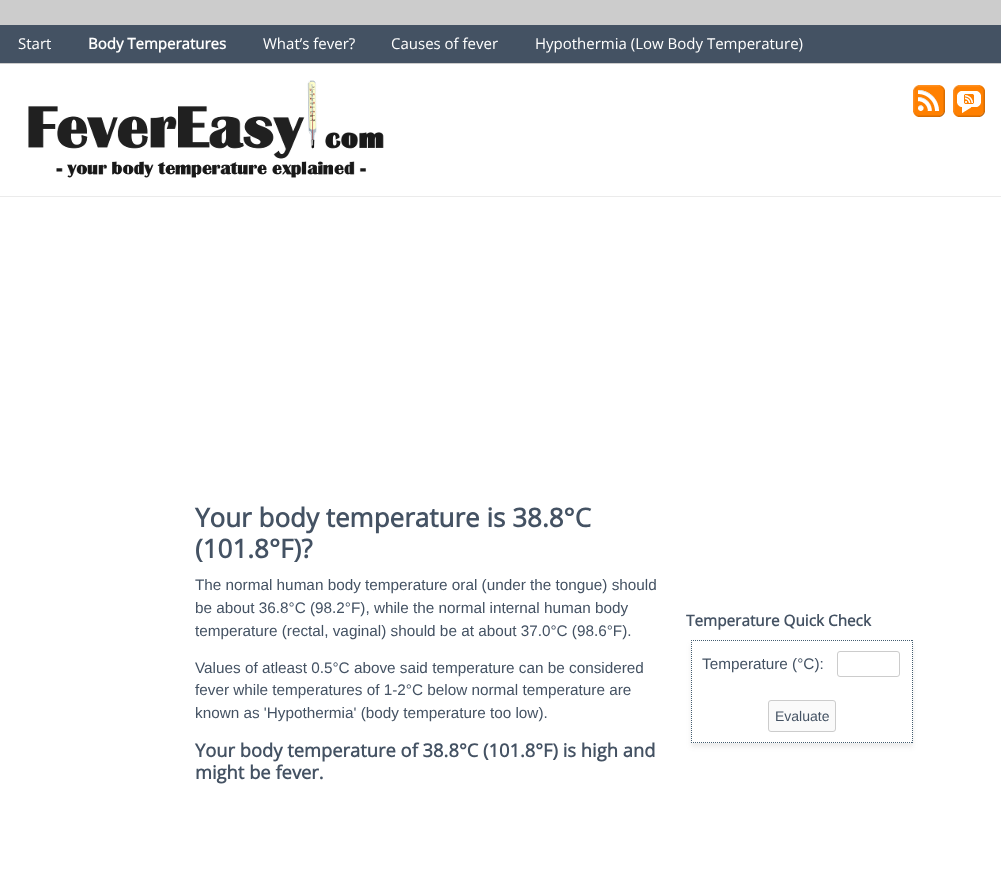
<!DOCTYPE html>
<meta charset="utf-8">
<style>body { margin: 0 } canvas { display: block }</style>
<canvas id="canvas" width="1001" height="877"></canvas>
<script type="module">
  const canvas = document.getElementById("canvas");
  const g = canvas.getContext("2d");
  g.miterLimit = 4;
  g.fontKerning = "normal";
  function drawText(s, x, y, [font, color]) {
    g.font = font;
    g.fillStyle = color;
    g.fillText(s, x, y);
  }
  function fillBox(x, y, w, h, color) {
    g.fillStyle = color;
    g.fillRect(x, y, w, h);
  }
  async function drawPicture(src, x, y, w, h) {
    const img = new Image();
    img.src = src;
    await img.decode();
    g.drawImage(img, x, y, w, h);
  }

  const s1 = ["15px Open Sans", "#FFFFFF"];
  const s2 = ["bold 15px Open Sans", "#FFFFFF"];
  const s3 = ["bold 26px Open Sans", "#445263"];
  const s4 = ["15.3px Liberation Sans", "#445263"];
  const s5 = ["bold 18.35px Open Sans", "#445263"];
  const s6 = ["bold 15.3px Open Sans", "#445263"];
  const s7 = ["14px Liberation Sans", "#445263"];

  fillBox(0, 0, 1001, 877, "#CCCCCC");
  fillBox(0, 25, 1001, 38, "#445263");
  drawText("Start", 18, 49, s1);
  drawText("Body Temperatures", 88, 49, s2);
  drawText("What’s fever?", 263, 49, s1);
  drawText("Causes of fever", 391, 49, s1);
  drawText("Hypothermia (Low Body Temperature)", 535, 49, s1);
  fillBox(0, 64, 1001, 132, "#FFFFFF");
  fillBox(0, 196, 1001, 1, "#EBEBEB");
  await drawPicture("pic1.png", 28, 80, 356, 98);
  await drawPicture("pic2.png", 913, 85, 32, 32);
  await drawPicture("pic3.png", 953, 85, 32, 32);
  fillBox(0, 197, 1001, 680, "#FFFFFF");
  drawText("Your body temperature is 38.8°C", 195, 527, s3);
  drawText("(101.8°F)?", 195, 558, s3);
  drawText("The normal human body temperature oral (under the tongue) should", 195, 590, s4);
  drawText("be about 36.8°C (98.2°F), while the normal internal human body", 195, 613, s4);
  drawText("temperature (rectal, vaginal) should be at about 37.0°C (98.6°F).", 195, 636, s4);
  drawText("Values of atleast 0.5°C above said temperature can be considered", 195, 673, s4);
  drawText("fever while temperatures of 1-2°C below normal temperature are", 195, 695, s4);
  drawText("known as 'Hypothermia' (body temperature too low).", 195, 718, s4);
  drawText("Your body temperature of 38.8°C (101.8°F) is high and", 195, 757, s5);
  drawText("might be fever.", 195, 779, s5);
  drawText("Temperature Quick Check", 686, 626, s6);
  g.save();
  g.beginPath();
  g.moveTo(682, 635);
  g.lineTo(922, 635);
  g.lineTo(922, 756);
  g.lineTo(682, 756);
  g.closePath();
  g.moveTo(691, 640);
  g.lineTo(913, 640);
  g.lineTo(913, 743);
  g.lineTo(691, 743);
  g.closePath();
  g.clip("evenodd");
  g.fillStyle = "rgba(64, 64, 64, 0.1)";
  g.filter = "blur(2.5px)";
  g.beginPath();
  g.rect(691, 644, 222, 103);
  g.fill();
  g.filter = "none";
  g.restore();
  g.beginPath();
  g.moveTo(691, 640.5);
  g.lineTo(913, 640.5);
  g.strokeStyle = "#445D70";
  g.setLineDash([1, 1]);
  g.stroke();
  g.beginPath();
  g.moveTo(912.5, 640);
  g.lineTo(912.5, 743);
  g.stroke();
  g.beginPath();
  g.moveTo(691, 742.5);
  g.lineTo(913, 742.5);
  g.stroke();
  g.beginPath();
  g.moveTo(691.5, 640);
  g.lineTo(691.5, 743);
  g.stroke();
  drawText("Temperature (°C):", 702, 669, s4);
  g.beginPath();
  g.roundRect(837.5, 651.5, 62, 25, 2.5);
  g.strokeStyle = "#CCCCCC";
  g.setLineDash([]);
  g.stroke();
  g.fillStyle = "#FAFAFA";
  g.beginPath();
  g.roundRect(768.5, 700.5, 67, 31, 2.5);
  g.fill();
  g.stroke();
  drawText("Evaluate", 775, 721, s7);
</script>
